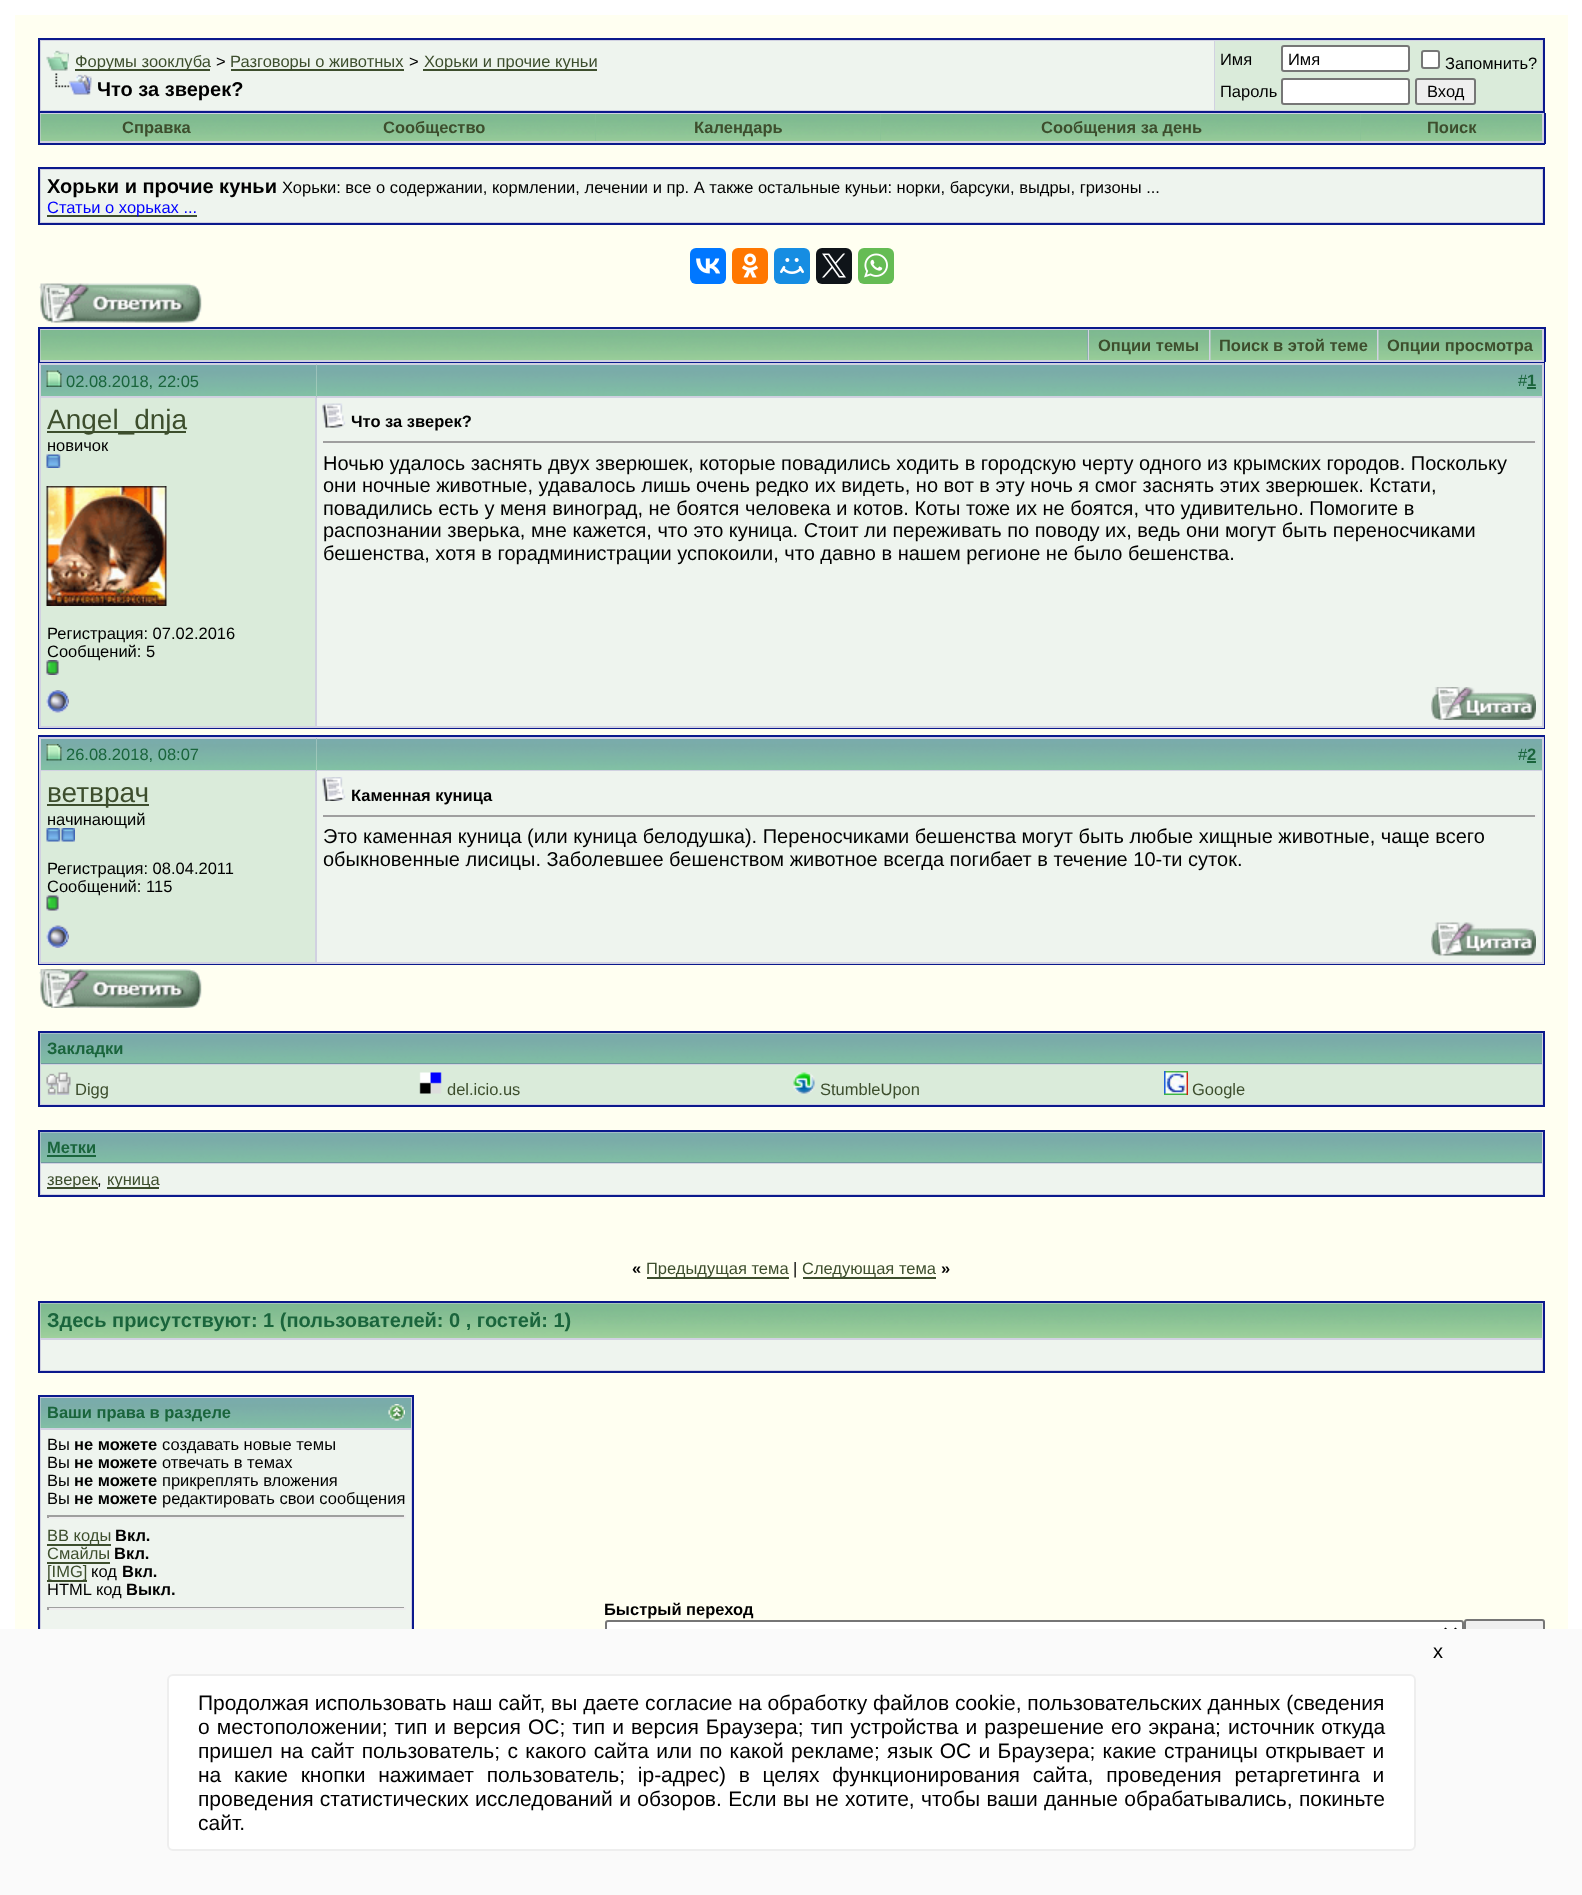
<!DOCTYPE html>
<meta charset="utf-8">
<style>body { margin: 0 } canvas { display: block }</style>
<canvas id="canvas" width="1582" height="1895"></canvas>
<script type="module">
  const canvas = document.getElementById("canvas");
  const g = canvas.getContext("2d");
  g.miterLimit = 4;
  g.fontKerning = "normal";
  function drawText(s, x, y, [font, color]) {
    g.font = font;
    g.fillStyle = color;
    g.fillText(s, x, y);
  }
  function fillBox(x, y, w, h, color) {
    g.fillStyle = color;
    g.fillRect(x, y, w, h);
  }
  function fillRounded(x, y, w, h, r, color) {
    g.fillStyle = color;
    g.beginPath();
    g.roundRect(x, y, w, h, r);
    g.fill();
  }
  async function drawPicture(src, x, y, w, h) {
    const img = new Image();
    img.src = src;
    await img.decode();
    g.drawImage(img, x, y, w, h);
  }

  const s1 = ["16.5px Liberation Sans", "#3D4E2D"];
  const s2 = ["16.5px Liberation Sans", "#000000"];
  const s3 = ["bold 20px Liberation Sans", "#000000"];
  const s4 = ["bold 16.5px Liberation Sans", "#3D4E2D"];
  const s5 = ["16.5px Liberation Sans", "#0000FF"];
  const s6 = ["16.5px Liberation Sans", "#1A653C"];
  const s7 = ["bold 16.5px Liberation Sans", "#1A653C"];
  const s8 = ["28px Liberation Sans", "#3D4E2D"];
  const s9 = ["bold 16.5px Liberation Sans", "#000000"];
  const s10 = ["20px Liberation Sans", "#000000"];
  const s11 = ["bold 20px Liberation Sans", "#1A653C"];
  const s12 = ["21px Liberation Sans", "#000000"];

  fillBox(0, 0, 1582, 1895, "#FFFFFF");
  fillBox(15, 15, 1553, 1614, "#FFFFF1");
  g.fillStyle = "#D1D1E1";
  g.beginPath();
  g.rect(39, 39, 1505, 73);
  g.fill();
  g.strokeStyle = "#0B198C";
  g.lineWidth = 2;
  g.stroke();
  fillBox(41, 41, 1173, 69, "#EEF4EE");
  await drawPicture("pic1.png", 46, 50, 23, 21);
  fillBox(75, 69, 135, 2, "#3D4E2D");
  drawText("Форумы зооклуба", 75, 67, s1);
  drawText(">", 216, 67, s2);
  fillBox(231, 69, 173, 2, "#3D4E2D");
  drawText("Разговоры о животных", 230, 67, s1);
  drawText(">", 409, 67, s2);
  fillBox(423, 69, 174, 2, "#3D4E2D");
  drawText("Хорьки и прочие куньи", 424, 67, s1);
  await drawPicture("pic2.png", 55, 73, 37, 22);
  drawText("Что за зверек?", 97, 96, s3);
  fillBox(1215, 41, 327, 69, "#DAEBDA");
  drawText("Имя", 1220, 65, s2);
  g.fillStyle = "#FFFFFF";
  g.beginPath();
  g.roundRect(1282, 46, 127, 25, 2);
  g.fill();
  g.strokeStyle = "#767676";
  g.stroke();
  drawText("Имя", 1288, 65, s2);
  g.fillStyle = "#FFFFFF";
  g.beginPath();
  g.roundRect(1422, 51, 17, 17, 2);
  g.fill();
  g.stroke();
  drawText("Запомнить?", 1445, 69, s2);
  drawText("Пароль", 1220, 97, s2);
  g.fillStyle = "#FFFFFF";
  g.beginPath();
  g.roundRect(1282, 79, 127, 25, 2);
  g.fill();
  g.stroke();
  g.fillStyle = "#EFEFEF";
  g.beginPath();
  g.roundRect(1416, 79, 59, 25, 2);
  g.fill();
  g.stroke();
  drawText("Вход", 1427, 97, s2);
  fillBox(40, 113, 1504, 30, "#D1D1E1");
  fillBox(1544, 113, 2, 31, "#0B198C");
  fillBox(38, 143, 1507, 2, "#0B198C");
  fillBox(38, 113, 2, 31, "#0B198C");
  await drawPicture("pic3.png", 40, 114, 233, 27);
  drawText("Справка", 122, 133, s4);
  fillBox(595, 114, 1, 27, "#86C094");
  await drawPicture("pic4.png", 273, 114, 323, 27);
  drawText("Сообщество", 383, 133, s4);
  fillBox(880, 114, 1, 27, "#86C094");
  await drawPicture("pic5.png", 596, 114, 285, 27);
  drawText("Календарь", 694, 133, s4);
  fillBox(1360, 114, 1, 27, "#86C094");
  await drawPicture("pic6.png", 881, 114, 480, 27);
  drawText("Сообщения за день", 1041, 133, s4);
  await drawPicture("pic7.png", 1361, 114, 181, 27);
  drawText("Поиск", 1427, 133, s4);
  g.fillStyle = "#D1D1E1";
  g.beginPath();
  g.rect(39, 168, 1505, 56);
  g.fill();
  g.strokeStyle = "#0B198C";
  g.stroke();
  fillBox(41, 170, 1501, 52, "#EEF4EE");
  drawText("Хорьки и прочие куньи", 47, 193, s3);
  drawText("Хорьки: все о содержании, кормлении, лечении и пр. А также остальные куньи: норки, барсуки, выдры, гризоны ...", 282, 193, s2);
  fillBox(47, 215, 150, 2, "#3D4E2D");
  drawText("Статьи о хорьках ...", 47, 213, s5);
  fillRounded(690, 248, 36, 36, 6, "#0077FF");
  await drawPicture("pic8.png", 696, 258, 24, 16);
  fillRounded(732, 248, 36, 36, 6, "#FF7700");
  await drawPicture("pic9.png", 742, 253, 16, 25);
  fillRounded(774, 248, 36, 36, 6, "#168DE2");
  await drawPicture("pic10.png", 780, 258, 24, 16);
  fillRounded(816, 248, 36, 36, 6, "#0F1419");
  await drawPicture("pic11.png", 822, 253, 24, 25);
  fillRounded(858, 248, 36, 36, 6, "#65BC54");
  await drawPicture("pic12.png", 864, 253, 24, 25);
  await drawPicture("pic13.png", 39, 283, 163, 40);
  fillBox(40, 329, 1504, 33, "#D1D1E1");
  fillBox(38, 327, 1507, 2, "#0B198C");
  fillBox(1544, 327, 2, 35, "#0B198C");
  fillBox(38, 327, 2, 35, "#0B198C");
  fillBox(1087, 330, 1, 30, "#869BBF");
  await drawPicture("pic14.png", 40, 330, 1048, 30);
  await drawPicture("pic15.png", 1089, 330, 120, 30);
  drawText("Опции темы", 1098, 351, s4);
  await drawPicture("pic16.png", 1210, 330, 167, 30);
  drawText("Поиск в этой теме", 1219, 351, s4);
  await drawPicture("pic17.png", 1378, 330, 164, 30);
  drawText("Опции просмотра", 1387, 351, s4);
  g.strokeRect(39, 363, 1505, 365);
  await drawPicture("pic18.png", 41, 365, 276, 31);
  fillBox(39, 363, 278, 2, "#D1D1E1");
  fillBox(39, 396, 278, 2, "#D1D1E1");
  fillBox(39, 363, 2, 318, "#D1D1E1");
  await drawPicture("pic19.png", 46, 370, 16, 17);
  drawText("02.08.2018, 22:05", 66, 387, s6);
  await drawPicture("pic20.png", 316, 364, 1226, 34);
  fillBox(317, 363, 1227, 2, "#D1D1E1");
  fillBox(1542, 363, 2, 365, "#D1D1E1");
  fillBox(317, 396, 1227, 2, "#D1D1E1");
  drawText("#", 1518, 386, s6);
  drawText("1", 1527, 386, s7);
  fillBox(1527, 387, 9, 2, "#1A653C");
  fillBox(41, 398, 274, 328, "#DAEBDA");
  fillBox(315, 398, 2, 330, "#D1D1E1");
  fillBox(47, 431, 139, 2, "#3D4E2D");
  drawText("Angel_dnja", 47, 429, s8);
  drawText("новичок", 47, 451, s2);
  await drawPicture("pic21.png", 46, 454, 15, 14);
  await drawPicture("pic22.png", 46, 486, 121, 120);
  drawText("Регистрация: 07.02.2016", 47, 639, s2);
  drawText("Сообщений: 5", 47, 657, s2);
  await drawPicture("pic23.png", 46, 660, 13, 15);
  fillBox(317, 398, 1225, 328, "#EEF4EE");
  await drawPicture("pic24.png", 322, 403, 24, 25);
  drawText("Что за зверек?", 351, 427, s9);
  fillBox(323, 441, 1213, 2, "#9F9F9F");
  fillBox(1535, 441, 2, 2, "#EEEEEE");
  drawText("Ночью удалось заснять двух зверюшек, которые повадились ходить в городскую черту одного из крымских городов. Поскольку", 323, 470, s10);
  drawText("они ночные животные, удавалось лишь очень редко их видеть, но вот в эту ночь я смог заснять этих зверюшек. Кстати,", 323, 492, s10);
  drawText("повадились есть у меня виноград, не боятся человека и котов. Коты тоже их не боятся, что удивительно. Помогите в", 323, 515, s10);
  drawText("распознании зверька, мне кажется, что это куница. Стоит ли переживать по поводу их, ведь они могут быть переносчиками", 323, 537, s10);
  drawText("бешенства, хотя в горадминистрации успокоили, что давно в нашем регионе не было бешенства.", 323, 560, s10);
  fillBox(39, 726, 1505, 2, "#D1D1E1");
  fillBox(39, 681, 2, 47, "#D1D1E1");
  await drawPicture("pic25.png", 46, 690, 23, 23);
  await drawPicture("pic26.png", 1431, 687, 105, 33);
  g.strokeRect(39, 736, 1505, 228);
  await drawPicture("pic27.png", 41, 739, 276, 31);
  fillBox(39, 737, 278, 2, "#D1D1E1");
  fillBox(39, 770, 278, 1, "#D1D1E1");
  fillBox(39, 737, 2, 180, "#D1D1E1");
  await drawPicture("pic28.png", 46, 744, 16, 17);
  drawText("26.08.2018, 08:07", 66, 760, s6);
  await drawPicture("pic29.png", 316, 738, 1226, 33);
  fillBox(317, 737, 1227, 2, "#D1D1E1");
  fillBox(1542, 737, 2, 226, "#D1D1E1");
  fillBox(317, 770, 1227, 1, "#D1D1E1");
  drawText("#", 1518, 760, s6);
  drawText("2", 1527, 760, s7);
  fillBox(1527, 761, 9, 2, "#1A653C");
  fillBox(41, 771, 274, 191, "#DAEBDA");
  fillBox(315, 771, 2, 192, "#D1D1E1");
  fillBox(47, 804, 102, 2, "#3D4E2D");
  drawText("ветврач", 47, 802, s8);
  drawText("начинающий", 47, 825, s2);
  await drawPicture("pic30.png", 46, 828, 29, 14);
  drawText("Регистрация: 08.04.2011", 47, 874, s2);
  drawText("Сообщений: 115", 47, 892, s2);
  await drawPicture("pic31.png", 46, 895, 13, 16);
  fillBox(317, 771, 1225, 191, "#EEF4EE");
  await drawPicture("pic32.png", 322, 777, 24, 24);
  drawText("Каменная куница", 351, 801, s9);
  fillBox(323, 815, 1213, 2, "#9F9F9F");
  fillBox(1535, 815, 2, 2, "#EEEEEE");
  drawText("Это каменная куница (или куница белодушка). Переносчиками бешенства могут быть любые хищные животные, чаще всего", 323, 843, s10);
  drawText("обыкновенные лисицы. Заболевшее бешенством животное всегда погибает в течение 10-ти суток.", 323, 866, s10);
  fillBox(39, 962, 1505, 2, "#D1D1E1");
  fillBox(39, 917, 2, 46, "#D1D1E1");
  await drawPicture("pic33.png", 46, 925, 23, 23);
  await drawPicture("pic34.png", 1431, 922, 105, 34);
  await drawPicture("pic35.png", 39, 969, 163, 39);
  g.beginPath();
  g.rect(39, 1032, 1505, 74);
  g.fill();
  g.stroke();
  fillBox(41, 1063, 1501, 1, "#5C7099");
  await drawPicture("pic36.png", 40, 1033, 1502, 31);
  drawText("Закладки", 47, 1054, s7);
  fillBox(41, 1065, 1501, 39, "#DAEBDA");
  await drawPicture("pic37.png", 46, 1072, 25, 23);
  drawText("Digg", 75, 1095, s1);
  await drawPicture("pic38.png", 419, 1072, 23, 22);
  drawText("del.icio.us", 447, 1095, s1);
  await drawPicture("pic39.png", 793, 1072, 22, 22);
  drawText("StumbleUpon", 820, 1095, s1);
  await drawPicture("pic40.png", 1164, 1071, 24, 24);
  drawText("Google", 1192, 1095, s1);
  g.fillStyle = "#D1D1E1";
  g.beginPath();
  g.rect(39, 1131, 1505, 65);
  g.fill();
  g.stroke();
  fillBox(41, 1162, 1501, 1, "#5C7099");
  await drawPicture("pic41.png", 40, 1132, 1502, 31);
  drawText("Метки", 47, 1153, s7);
  fillBox(47, 1155, 49, 2, "#1A653C");
  fillBox(41, 1164, 1501, 30, "#EEF4EE");
  fillBox(47, 1187, 51, 2, "#3D4E2D");
  drawText("зверек", 47, 1185, s1);
  drawText(",", 97, 1185, s2);
  fillBox(107, 1187, 52, 2, "#3D4E2D");
  drawText("куница", 107, 1185, s1);
  drawText("«", 632, 1274, s9);
  fillBox(647, 1277, 142, 2, "#3D4E2D");
  drawText("Предыдущая тема", 646, 1274, s1);
  drawText("|", 793, 1274, s2);
  fillBox(803, 1277, 133, 2, "#3D4E2D");
  drawText("Следующая тема", 802, 1274, s1);
  drawText("»", 941, 1274, s9);
  g.fillStyle = "#D1D1E1";
  g.beginPath();
  g.rect(39, 1302, 1505, 70);
  g.fill();
  g.stroke();
  await drawPicture("pic42.png", 40, 1303, 1502, 35);
  drawText("Здесь присутствуют: 1 (пользователей: 0 , гостей: 1)", 47, 1327, s11);
  fillBox(41, 1340, 1501, 30, "#EEF4EE");
  fillBox(40, 1397, 372, 232, "#D1D1E1");
  g.strokeRect(39, 1396, 374, 249);
  await drawPicture("pic43.png", 40, 1398, 371, 30);
  drawText("Ваши права в разделе", 47, 1418, s7);
  await drawPicture("pic44.png", 388, 1404, 17, 17);
  fillBox(41, 1430, 370, 199, "#EEF4EE");
  drawText("Вы", 47, 1450, s2);
  drawText("не можете", 74, 1450, s9);
  drawText("создавать новые темы", 162, 1450, s2);
  drawText("Вы", 47, 1468, s2);
  drawText("не можете", 74, 1468, s9);
  drawText("отвечать в темах", 162, 1468, s2);
  drawText("Вы", 47, 1486, s2);
  drawText("не можете", 74, 1486, s9);
  drawText("прикреплять вложения", 162, 1486, s2);
  drawText("Вы", 47, 1504, s2);
  drawText("не можете", 74, 1504, s9);
  drawText("редактировать свои сообщения", 162, 1504, s2);
  fillBox(47, 1515, 358, 2, "#9F9F9F");
  fillBox(404, 1515, 2, 3, "#EEEEEE");
  fillBox(47, 1517, 358, 2, "#EEEEEE");
  fillBox(47, 1515, 2, 3, "#9F9F9F");
  fillBox(47, 1544, 64, 2, "#3D4E2D");
  drawText("BB коды", 47, 1541, s1);
  drawText("Вкл.", 115, 1541, s9);
  drawText("Смайлы", 47, 1559, s1);
  fillBox(47, 1562, 63, 2, "#3D4E2D");
  drawText("Вкл.", 114, 1559, s9);
  fillBox(47, 1580, 40, 2, "#3D4E2D");
  drawText("[IMG]", 47, 1577, s1);
  drawText("код", 91, 1577, s2);
  drawText("Вкл.", 122, 1577, s9);
  drawText("HTML код", 47, 1595, s2);
  drawText("Выкл.", 126, 1595, s9);
  fillBox(47, 1607, 358, 1, "#9F9F9F");
  fillBox(404, 1607, 2, 3, "#EEEEEE");
  fillBox(47, 1608, 358, 2, "#EEEEEE");
  fillBox(47, 1607, 2, 3, "#9F9F9F");
  drawText("Быстрый переход", 604, 1615, s9);
  g.fillStyle = "#FFFFFF";
  g.beginPath();
  g.roundRect(606, 1621, 857, 22, 2);
  g.fill();
  g.strokeStyle = "#767676";
  g.stroke();
  g.beginPath();
  g.moveTo(1444.5, 1628.5);
  g.lineTo(1450.5, 1634.5);
  g.lineTo(1456.5, 1628.5);
  g.strokeStyle = "#000000";
  g.lineWidth = 3;
  g.stroke();
  g.fillStyle = "#EFEFEF";
  g.beginPath();
  g.roundRect(1465, 1620, 79, 25, 2);
  g.fill();
  g.strokeStyle = "#767676";
  g.lineWidth = 2;
  g.stroke();
  fillBox(0, 1629, 1582, 266, "#FAFAFA");
  g.fillStyle = "#FFFFFF";
  g.beginPath();
  g.roundRect(168, 1675, 1247, 175, 5);
  g.fill();
  g.strokeStyle = "#EEEEEE";
  g.stroke();
  drawText("x", 1433, 1658, s10);
  drawText("Продолжая использовать наш сайт, вы даете согласие на обработку файлов cookie, пользовательских данных (сведения", 198, 1710, s12);
  g.wordSpacing = "1.2px";
  drawText("о местоположении; тип и версия ОС; тип и версия Браузера; тип устройства и разрешение его экрана; источник откуда", 198, 1734, s12);
  g.wordSpacing = "1.5px";
  drawText("пришел на сайт пользователь; с какого сайта или по какой рекламе; язык ОС и Браузера; какие страницы открывает и", 198, 1758, s12);
  g.wordSpacing = "6.9px";
  drawText("на какие кнопки нажимает пользователь; ip-адрес) в целях функционирования сайта, проведения ретаргетинга и", 198, 1782, s12);
  g.wordSpacing = "0.5px";
  drawText("проведения статистических исследований и обзоров. Если вы не хотите, чтобы ваши данные обрабатывались, покиньте", 198, 1806, s12);
  g.wordSpacing = "0px";
  drawText("сайт.", 198, 1830, s12);
</script>
